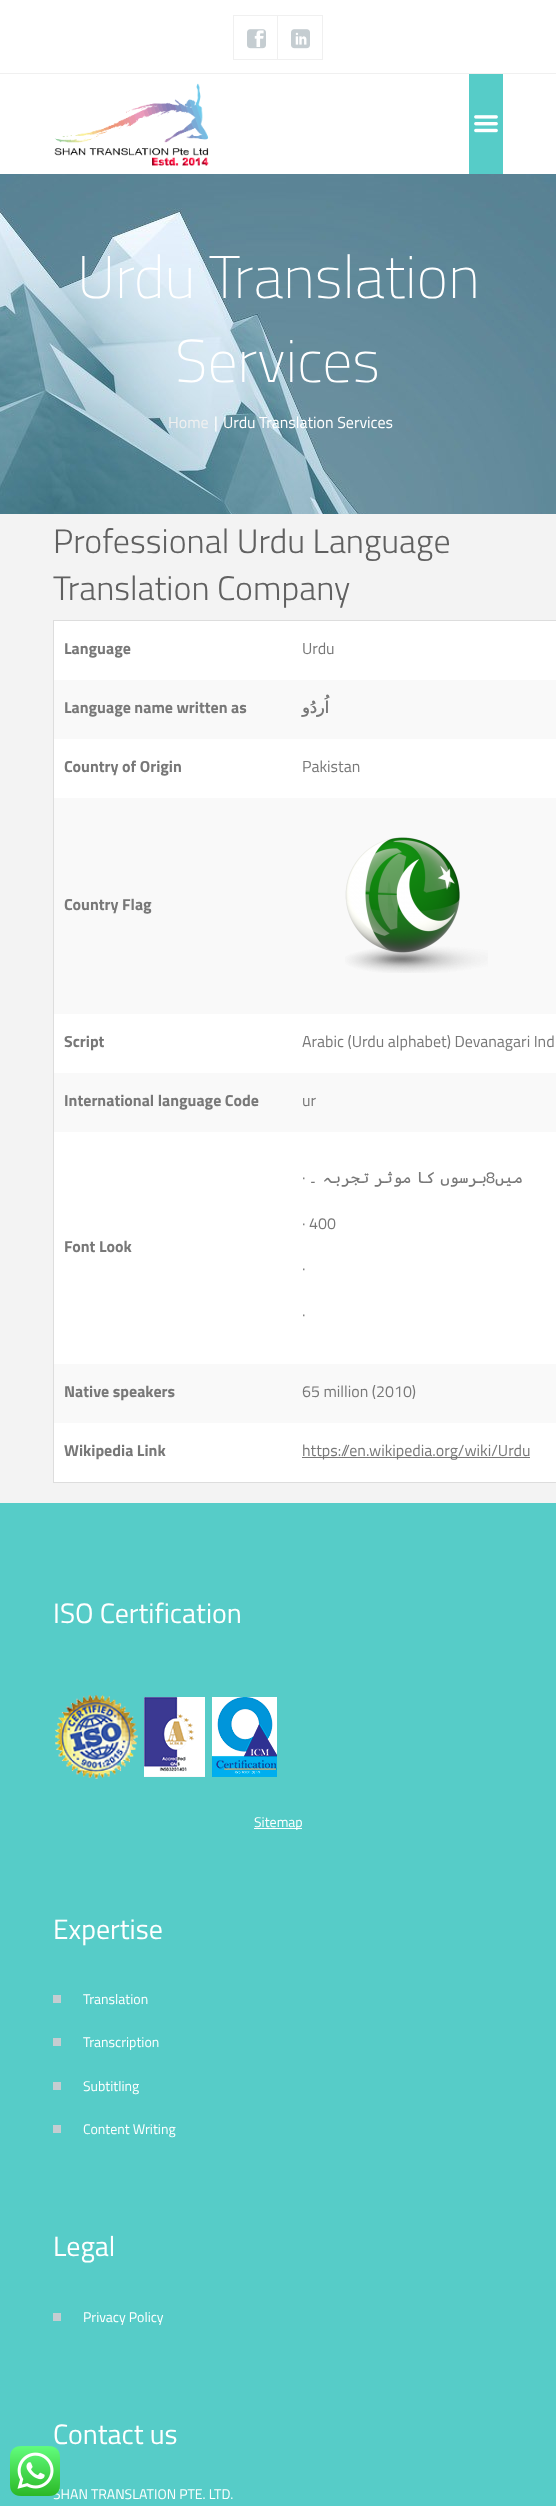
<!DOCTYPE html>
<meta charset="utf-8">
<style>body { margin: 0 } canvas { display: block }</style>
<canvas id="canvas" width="556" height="2506"></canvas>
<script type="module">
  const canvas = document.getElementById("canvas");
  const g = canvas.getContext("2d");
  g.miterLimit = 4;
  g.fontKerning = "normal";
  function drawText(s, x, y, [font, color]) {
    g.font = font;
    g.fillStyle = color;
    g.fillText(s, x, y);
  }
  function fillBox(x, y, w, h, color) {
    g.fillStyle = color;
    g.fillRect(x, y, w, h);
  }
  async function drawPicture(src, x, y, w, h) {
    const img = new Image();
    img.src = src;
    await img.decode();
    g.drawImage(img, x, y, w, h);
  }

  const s1 = ["14px Titillium Web", "#FFFFFF"];
  const s2 = ["200 60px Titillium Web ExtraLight", "#FFFFFF"];
  const s3 = ["16px Titillium Web", "#F0F0F0"];
  const s4 = ["16px Titillium Web", "#FFFFFF"];
  const s5 = ["300 34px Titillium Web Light", "#606060"];
  const s6 = ["bold 16px Titillium Web", "#787878"];
  const s7 = ["16px Titillium Web", "#787878"];
  const s8 = ["bold 16px DejaVu Sans", "#787878"];
  const s9 = ["16px Cascadia Code", "#787878"];
  const s10 = ["28px Titillium Web", "#FFFFFF"];

  fillBox(0, 0, 556, 2506, "#F3F3F3");
  fillBox(0, 1503, 556, 1003, "#56CCC8");
  drawText("SHAN TRANSLATION PTE. LTD.", 53, 2499, s1);
  await drawPicture("pic1.png", 10, 2446, 50, 50);
  fillBox(0, 0, 556, 73, "#FFFFFF");
  fillBox(0, 73, 556, 1, "#F0F0F0");
  g.strokeStyle = "#F0F0F0";
  g.strokeRect(233.5, 15.5, 44, 44);
  await drawPicture("pic2.png", 247, 29, 19, 20);
  fillBox(278, 15, 45, 1, "#F0F0F0");
  fillBox(322, 15, 1, 45, "#F0F0F0");
  fillBox(278, 59, 45, 1, "#F0F0F0");
  await drawPicture("pic3.png", 291, 29, 19, 20);
  fillBox(0, 74, 556, 100, "#FFFFFF");
  await drawPicture("pic4.png", 54, 83, 155, 83);
  fillBox(469, 74, 34, 100, "#56CCC8");
  await drawPicture("pic5.png", 474, 115, 24, 18);
  await drawPicture("pic6.png", 0, 174, 556, 340);
  drawText("Urdu Translation", 77, 298, s2);
  drawText("Services", 175, 382, s2);
  drawText("Home", 168, 428, s3);
  drawText("|", 214, 428, s4);
  drawText("Urdu Translation Services", 223, 428, s4);
  drawText("Professional Urdu Language", 53, 553, s5);
  drawText("Translation Company", 53, 600, s5);
  fillBox(54, 621, 502, 861, "#FFFFFF");
  fillBox(53, 620, 503, 1, "#DDDDDD");
  fillBox(53, 1482, 503, 1, "#DDDDDD");
  fillBox(53, 620, 1, 863, "#DDDDDD");
  drawText("Language", 64, 654, s6);
  drawText("Urdu", 302, 654, s7);
  fillBox(54, 680, 502, 59, "#F9F9F9");
  drawText("Language name written as", 64, 713, s6);
  g.direction = "rtl";
  drawText("اُردُو", 329, 713, s8);
  g.direction = "ltr";
  drawText("Country of Origin", 64, 772, s6);
  drawText("Pakistan", 302, 772, s7);
  fillBox(54, 798, 502, 216, "#F9F9F9");
  drawText("Country Flag", 64, 910, s6);
  await drawPicture("pic7.png", 345, 837, 143, 136);
  drawText("Script", 64, 1047, s6);
  drawText("Arabic (Urdu alphabet) Devanagari Ind", 302, 1047, s7);
  fillBox(54, 1073, 502, 59, "#F9F9F9");
  drawText("International language Code", 64, 1106, s6);
  drawText("ur", 302, 1106, s7);
  drawText("Font Look", 64, 1252, s6);
  g.wordSpacing = "-4.5px";
  g.direction = "rtl";
  drawText("برسوں کا موثر تجربہ ۔", 487, 1183, s9);
  g.wordSpacing = "0px";
  g.direction = "ltr";
  drawText("·", 302, 1183, s7);
  drawText("8", 486, 1183, s7);
  g.direction = "rtl";
  drawText("میں", 523, 1183, s9);
  g.direction = "ltr";
  drawText("· 400", 302, 1229, s7);
  drawText("·", 302, 1274, s7);
  drawText("·", 302, 1320, s7);
  fillBox(54, 1364, 502, 59, "#F9F9F9");
  drawText("Native speakers", 64, 1397, s6);
  drawText("65 million (2010)", 302, 1397, s7);
  drawText("Wikipedia Link", 64, 1456, s6);
  fillBox(302, 1457, 228, 1, "#787878");
  drawText("https://en.wikipedia.org/wiki/Urdu", 302, 1456, s7);
  drawText("ISO Certification", 53, 1623, s10);
  await drawPicture("pic8.png", 55, 1695, 83, 84);
  await drawPicture("pic9.png", 144, 1697, 61, 80);
  await drawPicture("pic10.png", 212, 1697, 65, 80);
  fillBox(254, 1828, 48, 1, "#FFFFFF");
  drawText("Sitemap", 254, 1827, s1);
  drawText("Expertise", 53, 1939, s10);
  fillBox(53, 1995, 8, 8, "#C5CDD1");
  drawText("Translation", 83, 2004, s1);
  fillBox(53, 2038, 8, 8, "#C5CDD1");
  drawText("Transcription", 83, 2047, s1);
  fillBox(53, 2082, 8, 8, "#C5CDD1");
  drawText("Subtitling", 83, 2091, s1);
  fillBox(53, 2125, 8, 8, "#C5CDD1");
  drawText("Content Writing", 83, 2134, s1);
  drawText("Legal", 53, 2256, s10);
  fillBox(53, 2313, 8, 8, "#C5CDD1");
  drawText("Privacy Policy", 83, 2322, s1);
  drawText("Contact us", 53, 2444, s10);
</script>
